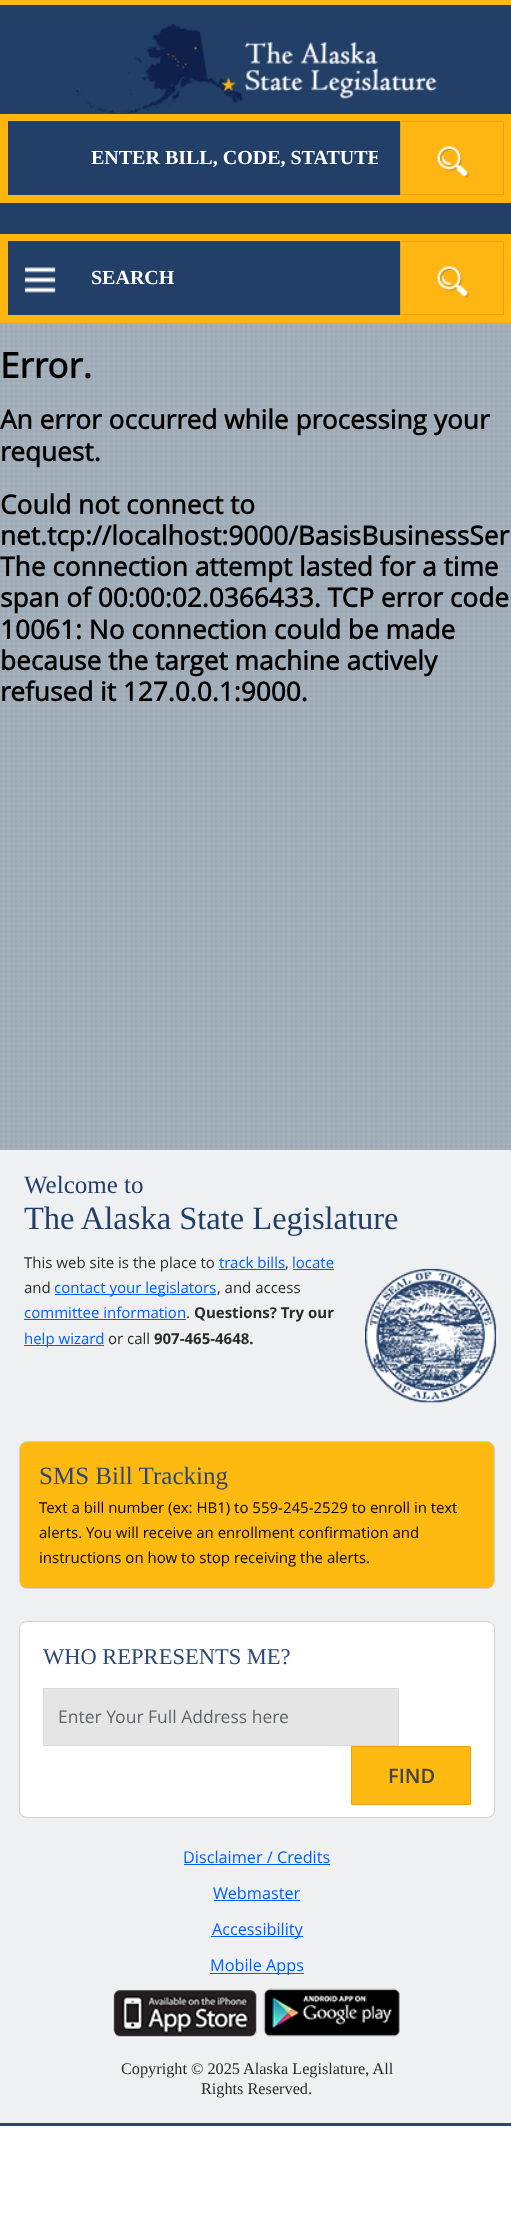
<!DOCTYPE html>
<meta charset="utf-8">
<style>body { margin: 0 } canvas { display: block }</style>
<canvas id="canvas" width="511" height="2222"></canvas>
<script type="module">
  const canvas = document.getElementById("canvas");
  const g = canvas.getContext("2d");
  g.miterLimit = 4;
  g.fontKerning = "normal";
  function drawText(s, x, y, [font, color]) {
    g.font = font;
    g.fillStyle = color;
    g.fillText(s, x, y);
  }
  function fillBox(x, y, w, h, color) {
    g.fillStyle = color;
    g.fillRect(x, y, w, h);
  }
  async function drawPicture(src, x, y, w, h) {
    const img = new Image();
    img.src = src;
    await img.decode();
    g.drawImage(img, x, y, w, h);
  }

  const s1 = ["bold 20px Liberation Serif", "#FFFFFF"];
  const s2 = ["bold 35px 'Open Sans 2'", "#000000"];
  const s3 = ["bold 26.25px 'Open Sans 2'", "#000000"];
  const s4 = ["25px Liberation Serif", "#223F68"];
  const s5 = ["32.5px Liberation Serif", "#223F68"];
  const s6 = ["15px Open Sans", "#2B2B2B"];
  const s7 = ["15px Open Sans", "#0060FF"];
  const s8 = ["bold 15px Open Sans", "#2B2B2B"];
  const s9 = ["25px Liberation Serif", "#2E4676"];
  const s10 = ["15px Open Sans", "#000000"];
  const s11 = ["22.5px Liberation Serif", "#2E4676"];
  const s12 = ["17.5px Open Sans", "#61666A"];
  const s13 = ["600 20px Open Sans", "#434343"];
  const s14 = ["16.25px Open Sans", "#0060FF"];
  const s15 = ["16.25px Liberation Serif", "#2B2B2B"];

  fillBox(0, 0, 511, 2222, "#FFFFFF");
  await drawPicture("pic1.png", 0, 323, 511, 1804);
  fillBox(0, 5, 511, 229, "#223F68");
  fillBox(0, 0, 511, 5, "#FFBA11");
  await drawPicture("pic2.png", 76, 23, 361, 91);
  fillBox(0, 114, 511, 89, "#FFB612");
  fillBox(8, 121, 392, 74, "#223F68");
  g.save();
  g.beginPath();
  g.rect(91, 148, 287, 22);
  g.clip();
  drawText("ENTER BILL, CODE, STATUTE", 91, 164, s1);
  g.restore();
  await drawPicture("pic3.png", 437, 146, 32, 32);
  g.strokeStyle = "#E8A50F";
  g.strokeRect(400.5, 121.5, 103, 73);
  fillBox(0, 234, 511, 89, "#FFB612");
  fillBox(8, 241, 392, 74, "#223F68");
  await drawPicture("pic4.png", 24, 267, 32, 26);
  drawText("SEARCH", 91, 284, s1);
  await drawPicture("pic3.png", 437, 266, 32, 32);
  g.strokeRect(400.5, 241.5, 103, 73);
  drawText("Error.", 0, 378, s2);
  drawText("An error occurred while processing your", 0, 429, s3);
  drawText("request.", 0, 461, s3);
  drawText("Could not connect to", 0, 514, s3);
  drawText("net.tcp://localhost:9000/BasisBusinessSer", 0, 545, s3);
  drawText("The connection attempt lasted for a time", 0, 576, s3);
  drawText("span of 00:00:02.0366433. TCP error code", 0, 607, s3);
  drawText("10061: No connection could be made", 0, 639, s3);
  drawText("because the target machine actively", 0, 670, s3);
  drawText("refused it 127.0.0.1:9000.", 0, 701, s3);
  fillBox(0, 1150, 511, 973, "#EEF0F2");
  fillBox(0, 2123, 511, 3, "#2A466D");
  drawText("Welcome to", 24, 1193, s4);
  drawText("The Alaska State Legislature", 24, 1229, s5);
  drawText("This web site is the place to", 24, 1268, s6);
  drawText("track bills", 219, 1268, s7);
  fillBox(219, 1269, 66, 1, "#0060FF");
  drawText(",", 285, 1268, s6);
  drawText("locate", 292, 1268, s7);
  fillBox(293, 1269, 41, 1, "#0060FF");
  drawText("and", 24, 1293, s6);
  fillBox(55, 1294, 161, 1, "#0060FF");
  drawText("contact your legislators", 54, 1293, s7);
  drawText(", and access", 217, 1293, s6);
  drawText("committee information", 24, 1318, s7);
  fillBox(24, 1319, 162, 1, "#0060FF");
  drawText(".", 186, 1318, s6);
  drawText("Questions? Try our", 194, 1318, s8);
  fillBox(24, 1345, 80, 1, "#0060FF");
  drawText("help wizard", 24, 1344, s7);
  drawText("or call", 108, 1344, s6);
  drawText("907-465-4648.", 154, 1344, s8);
  await drawPicture("pic5.png", 365, 1268, 132, 135);
  g.fillStyle = "#FFBA11";
  g.beginPath();
  g.roundRect(19.5, 1441.5, 475, 147, 7.5);
  g.fill();
  g.strokeStyle = "#D2D2D2";
  g.stroke();
  drawText("SMS Bill Tracking", 39, 1484, s9);
  drawText("Text a bill number (ex: HB1) to 559-245-2529 to enroll in text", 39, 1513, s10);
  drawText("alerts. You will receive an enrollment confirmation and", 39, 1538, s10);
  drawText("instructions on how to stop receiving the alerts.", 39, 1563, s10);
  g.fillStyle = "#FFFFFF";
  g.beginPath();
  g.roundRect(19.5, 1621.5, 475, 196, 7.5);
  g.fill();
  g.stroke();
  drawText("WHO REPRESENTS ME?", 43, 1664, s11);
  g.fillStyle = "#E5E5E5";
  g.beginPath();
  g.roundRect(43.5, 1688.5, 355, 57, 0.5);
  g.fill();
  g.strokeStyle = "#D9D9D9";
  g.stroke();
  drawText("Enter Your Full Address here", 58, 1723, s12);
  g.fillStyle = "#FFBA11";
  g.beginPath();
  g.rect(351.5, 1746.5, 119, 58);
  g.fill();
  g.strokeStyle = "#E8A50F";
  g.stroke();
  drawText("FIND", 388, 1783, s13);
  drawText("Disclaimer / Credits", 183, 1863, s14);
  fillBox(184, 1864, 146, 1, "#0060FF");
  drawText("Webmaster", 213, 1899, s14);
  fillBox(214, 1900, 86, 1, "#0060FF");
  fillBox(211, 1936, 92, 1, "#0060FF");
  drawText("Accessibility", 212, 1935, s14);
  fillBox(210, 1973, 94, 1, "#0060FF");
  drawText("Mobile Apps", 210, 1971, s14);
  await drawPicture("pic6.png", 112, 1990, 146, 48);
  await drawPicture("pic7.png", 263, 1988, 137, 49);
  drawText("Copyright © 2025 Alaska Legislature, All", 121, 2074, s15);
  drawText("Rights Reserved.", 201, 2094, s15);
</script>
